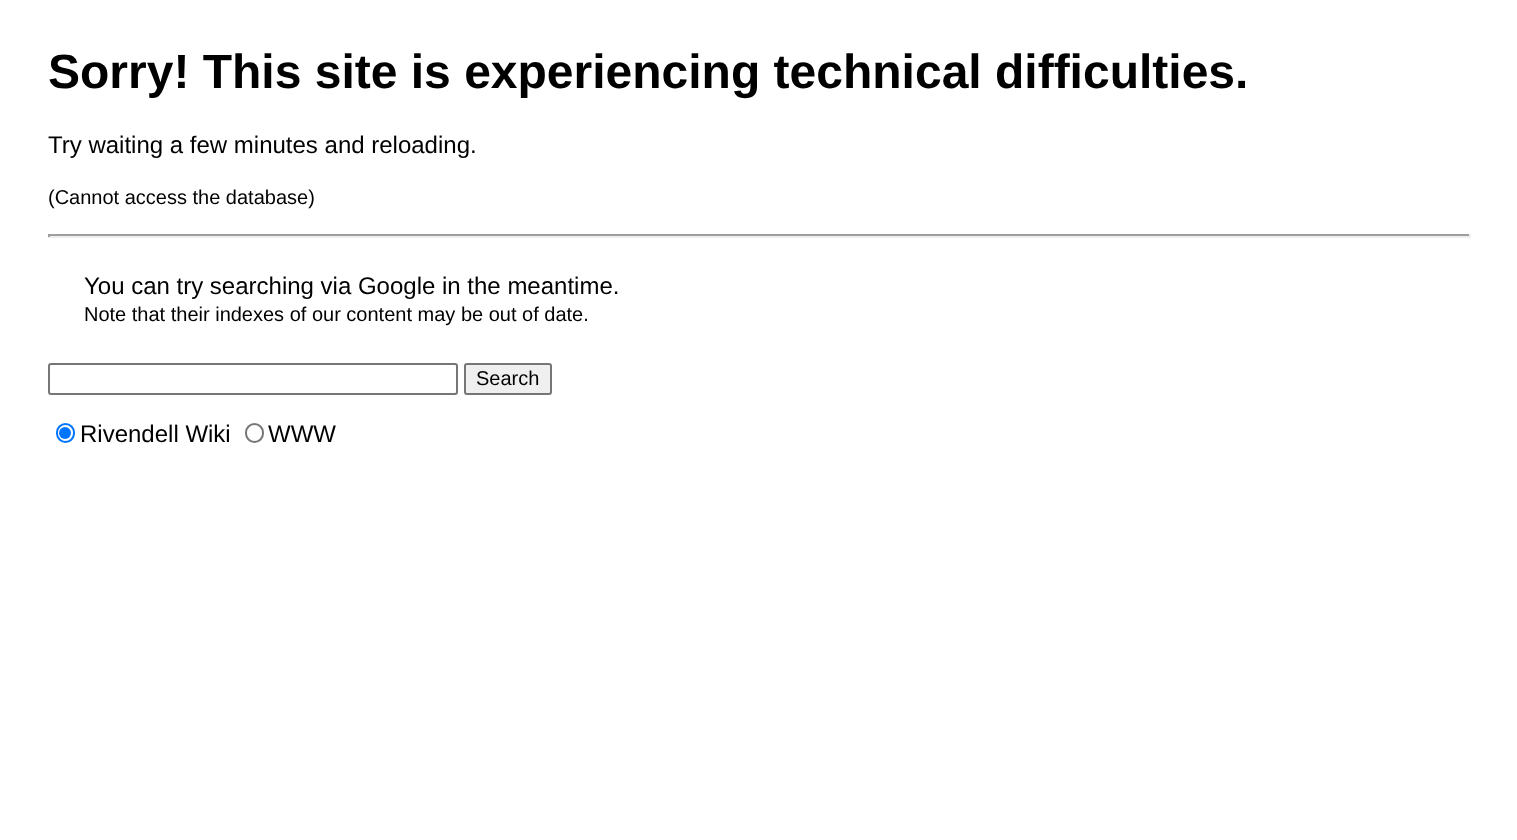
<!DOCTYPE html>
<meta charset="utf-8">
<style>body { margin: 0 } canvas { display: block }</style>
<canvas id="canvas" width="1517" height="840"></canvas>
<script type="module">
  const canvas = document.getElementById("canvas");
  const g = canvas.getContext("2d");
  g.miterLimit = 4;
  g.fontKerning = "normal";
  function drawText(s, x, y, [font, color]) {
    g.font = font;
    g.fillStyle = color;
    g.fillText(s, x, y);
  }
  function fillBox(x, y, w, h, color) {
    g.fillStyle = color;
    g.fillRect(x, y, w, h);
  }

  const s1 = ["bold 48px Liberation Sans", "#000000"];
  const s2 = ["24px Liberation Sans", "#000000"];
  const s3 = ["20px Liberation Sans", "#000000"];

  fillBox(0, 0, 1517, 840, "#FFFFFF");
  drawText("Sorry! This site is experiencing technical difficulties.", 48, 88, s1);
  drawText("Try waiting a few minutes and reloading.", 48, 153, s2);
  drawText("(Cannot access the database)", 48, 204, s3);
  fillBox(48, 234, 1422, 2, "#9F9F9F");
  fillBox(1469, 234, 2, 3, "#EEEEEE");
  fillBox(48, 236, 1422, 2, "#EEEEEE");
  fillBox(48, 234, 2, 3, "#9F9F9F");
  drawText("You can try searching via Google in the meantime.", 84, 294, s2);
  drawText("Note that their indexes of our content may be out of date.", 84, 321, s3);
  g.beginPath();
  g.roundRect(49, 364, 408, 30, 2);
  g.strokeStyle = "#767676";
  g.lineWidth = 2;
  g.stroke();
  g.fillStyle = "#EFEFEF";
  g.beginPath();
  g.roundRect(465, 364, 86, 30, 2);
  g.fill();
  g.stroke();
  drawText("Search", 476, 385, s3);
  g.beginPath();
  g.roundRect(57, 424, 17, 18, 8.5);
  g.strokeStyle = "#0075FF";
  g.stroke();
  g.fillStyle = "#0075FF";
  g.beginPath();
  g.arc(65, 433, 6, 0, Math.PI * 2);
  g.fill();
  drawText("Rivendell Wiki", 80, 442, s2);
  g.beginPath();
  g.roundRect(246, 424, 17, 18, 8.5);
  g.strokeStyle = "#767676";
  g.stroke();
  drawText("WWW", 268, 442, s2);
</script>
